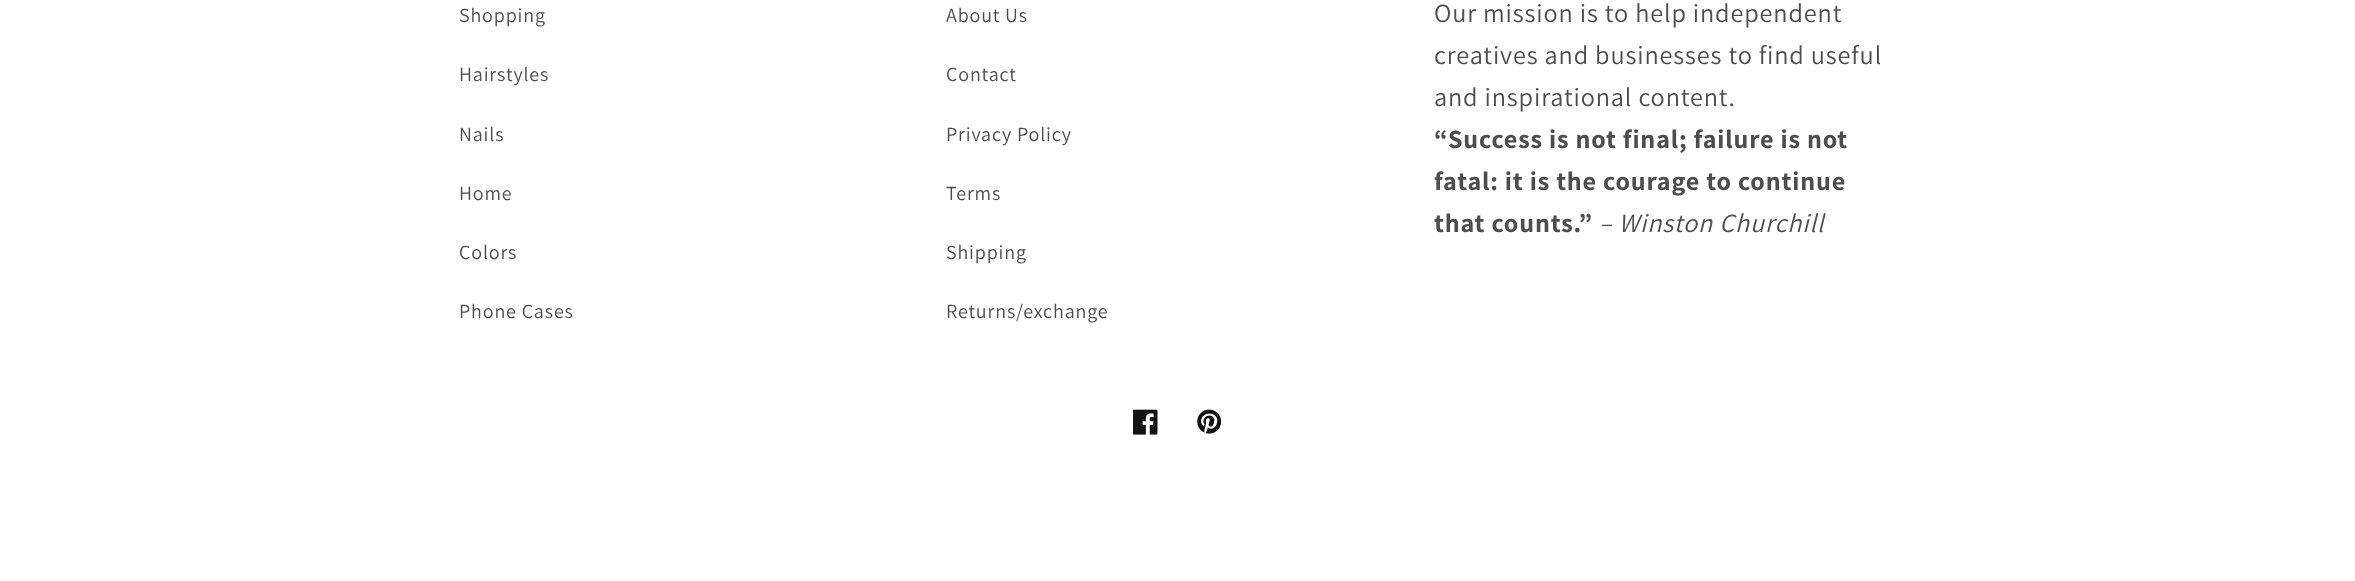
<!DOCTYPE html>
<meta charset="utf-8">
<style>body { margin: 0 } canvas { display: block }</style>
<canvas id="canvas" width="2355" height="581"></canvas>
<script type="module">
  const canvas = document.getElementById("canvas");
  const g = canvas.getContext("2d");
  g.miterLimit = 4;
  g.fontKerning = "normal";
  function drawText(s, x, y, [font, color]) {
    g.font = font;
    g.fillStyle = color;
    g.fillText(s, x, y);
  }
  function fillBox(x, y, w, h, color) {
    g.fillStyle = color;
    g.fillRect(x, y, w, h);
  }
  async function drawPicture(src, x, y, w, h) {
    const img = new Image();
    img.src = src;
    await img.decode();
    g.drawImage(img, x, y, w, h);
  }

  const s1 = ["20px Assistant", "#4D4D4D"];
  const s2 = ["26.25px Assistant", "#4D4D4D"];
  const s3 = ["bold 26.25px Assistant", "#4D4D4D"];
  const s4 = ["italic 26.25px Assistant", "#4D4D4D"];

  fillBox(0, 0, 2355, 581, "#FFFFFF");
  g.letterSpacing = "0.85px";
  drawText("Shopping", 459, 22, s1);
  drawText("Hairstyles", 459, 81, s1);
  drawText("Nails", 459, 141, s1);
  drawText("Home", 459, 200, s1);
  drawText("Colors", 459, 259, s1);
  drawText("Phone Cases", 459, 318, s1);
  drawText("About Us", 946, 22, s1);
  drawText("Contact", 946, 81, s1);
  drawText("Privacy Policy", 946, 141, s1);
  drawText("Terms", 946, 200, s1);
  drawText("Shipping", 946, 259, s1);
  drawText("Returns/exchange", 946, 318, s1);
  drawText("Our mission is to help independent", 1434, 22, s2);
  drawText("creatives and businesses to find useful", 1434, 64, s2);
  drawText("and inspirational content.", 1434, 106, s2);
  drawText("“Success is not final; failure is not", 1434, 148, s3);
  drawText("fatal: it is the courage to continue", 1434, 190, s3);
  drawText("that counts.”", 1434, 232, s3);
  drawText("– Winston Churchill", 1599, 232, s4);
  await drawPicture("pic1.png", 1133, 409, 25, 26);
  await drawPicture("pic2.png", 1197, 409, 25, 25);
</script>
